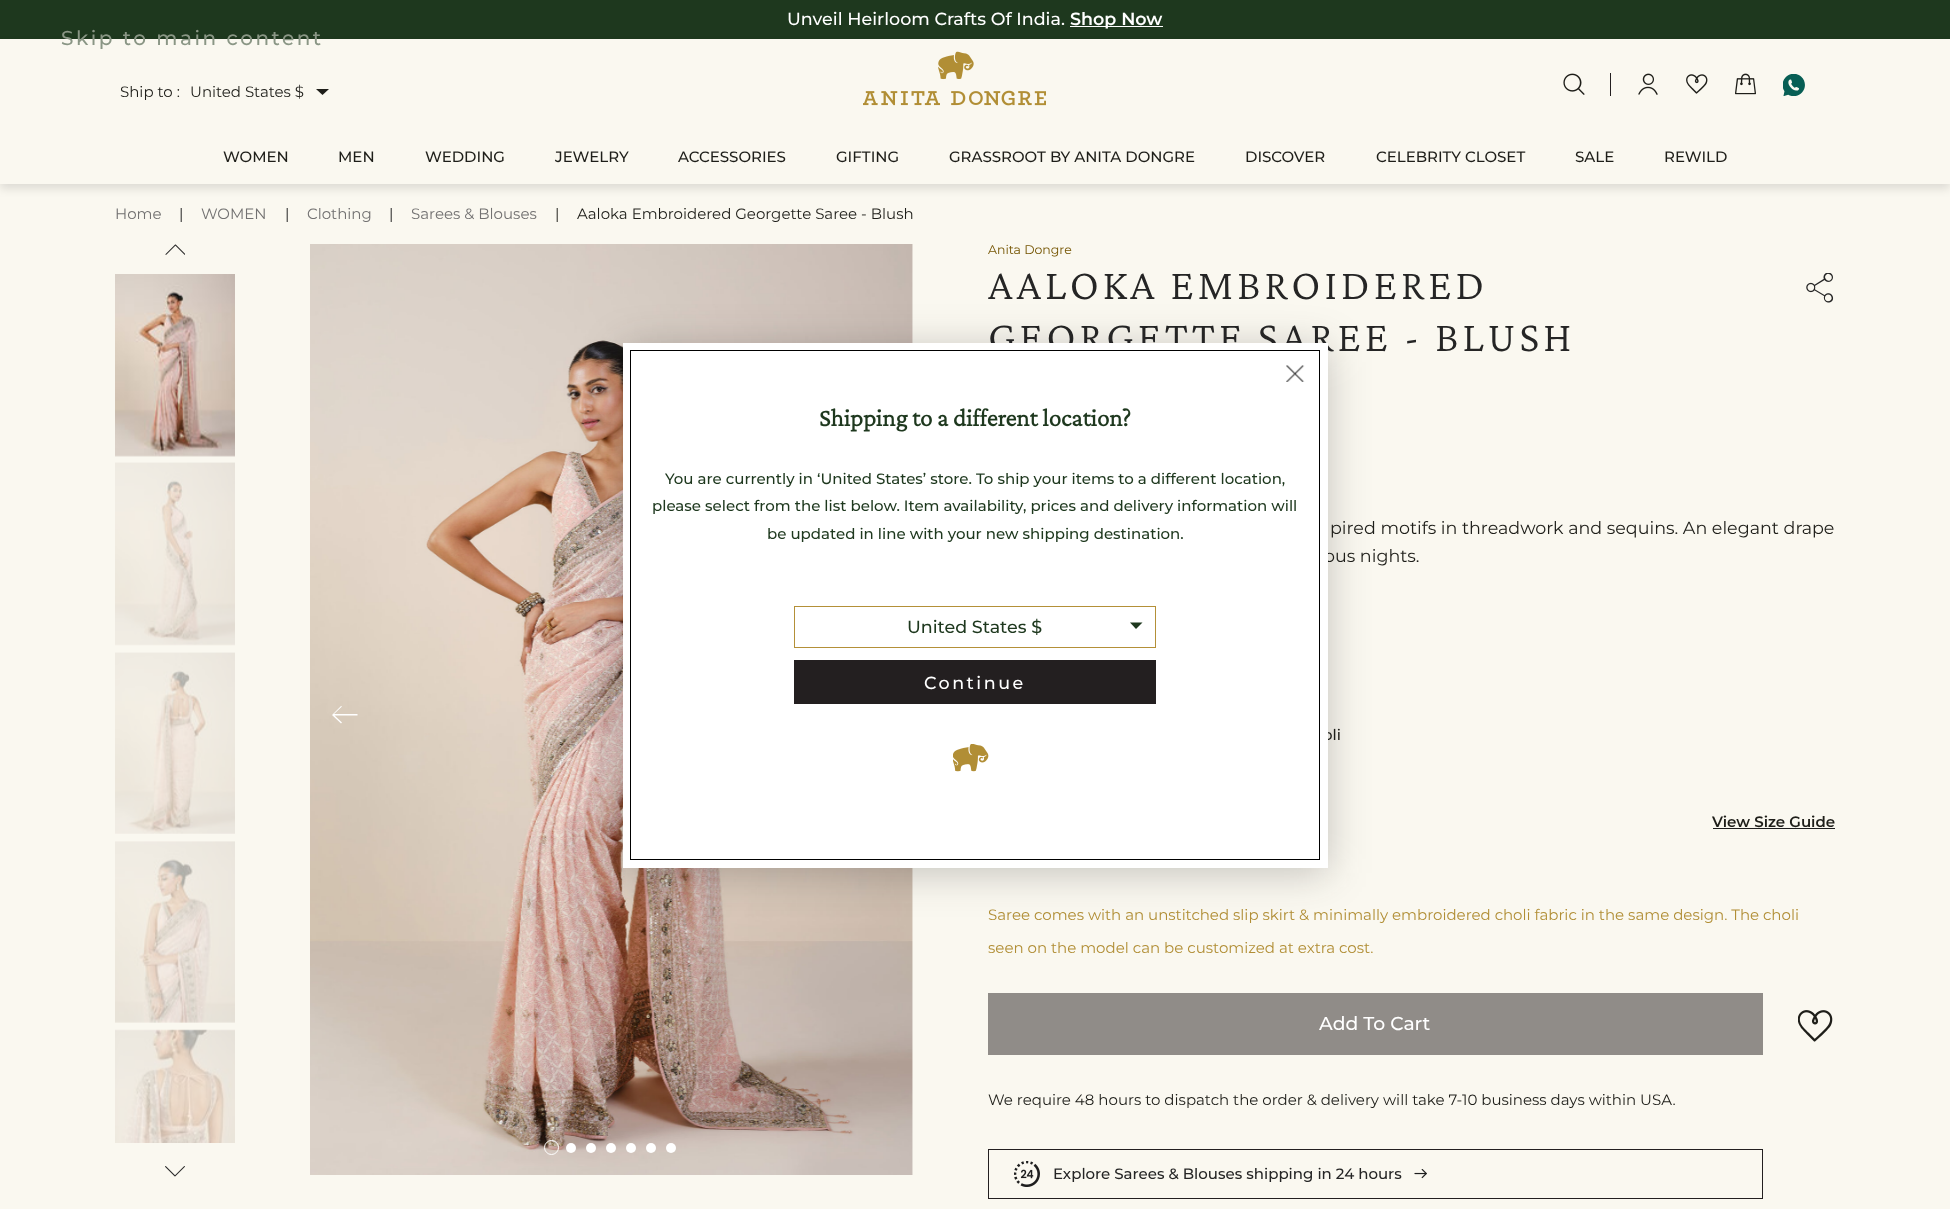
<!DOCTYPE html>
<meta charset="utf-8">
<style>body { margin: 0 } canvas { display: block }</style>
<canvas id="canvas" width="1950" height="1209"></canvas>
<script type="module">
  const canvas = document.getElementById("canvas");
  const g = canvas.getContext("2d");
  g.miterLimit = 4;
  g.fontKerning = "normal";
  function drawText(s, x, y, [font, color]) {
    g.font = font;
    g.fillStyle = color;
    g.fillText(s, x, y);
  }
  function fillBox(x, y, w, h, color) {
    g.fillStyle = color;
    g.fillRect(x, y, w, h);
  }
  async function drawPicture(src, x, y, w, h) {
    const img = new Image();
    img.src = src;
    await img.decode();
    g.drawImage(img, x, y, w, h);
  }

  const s1 = ["500 17.5px Montserrat", "#FFFFFF"];
  const s2 = ["600 17.5px Montserrat", "#FFFFFF"];
  const s3 = ["15px Montserrat", "#1E1E19"];
  const s4 = ["500 15px Montserrat", "#1E1E19"];
  const s5 = ["500 20px Montserrat", "#8A9685"];
  const s6 = ["15px Montserrat", "#727171"];
  const s7 = ["15px Montserrat", "#252525"];
  const s8 = ["12.5px Montserrat", "#745400"];
  const s9 = ["300 43.75px Crimson Pro", "#252525"];
  const s10 = ["17.5px Montserrat", "#1E1E19"];
  const s11 = ["600 15px Montserrat", "#1E1E19"];
  const s12 = ["15px Montserrat", "#B18E35"];
  const s13 = ["500 18.75px Montserrat", "#FFFFFF"];
  const s14 = ["500 15px Montserrat", "#252525"];
  const s15 = ["bold 25px Crimson Pro", "#1E381E"];
  const s16 = ["500 15px Montserrat", "#1E381E"];
  const s17 = ["500 17.5px Montserrat", "#1E381E"];

  fillBox(0, 0, 1950, 1209, "#FAF8F0");
  fillBox(0, 0, 1950, 39, "#1E381E");
  drawText("Unveil Heirloom Crafts Of India.", 787, 25, s1);
  fillBox(1070, 26, 93, 1, "#FFFFFF");
  drawText("Shop Now", 1070, 25, s2);
  g.fillStyle = "rgba(0, 0, 0, 0.11)";
  g.filter = "blur(4px)";
  g.beginPath();
  g.rect(0, 44, 1950, 145);
  g.fill();
  g.filter = "none";
  fillBox(0, 39, 1950, 145, "#FAF8F0");
  drawText("Ship to :", 120, 97, s3);
  drawText("United States $", 190, 97, s3);
  g.beginPath();
  g.moveTo(316, 89);
  g.lineTo(329, 89);
  g.lineTo(322.5, 95);
  g.closePath();
  g.fill();
  await drawPicture("pic1.png", 863, 51, 183, 55);
  fillBox(1610, 73, 1, 23, "#231F20");
  await drawPicture("pic2.png", 1563, 73, 22, 22);
  await drawPicture("pic3.png", 1638, 73, 20, 22);
  await drawPicture("pic4.png", 1686, 74, 22, 20);
  await drawPicture("pic5.png", 1735, 73, 21, 22);
  await drawPicture("pic6.png", 1783, 74, 22, 22);
  drawText("WOMEN", 223, 162, s4);
  drawText("MEN", 338, 162, s4);
  drawText("WEDDING", 425, 162, s4);
  drawText("JEWELRY", 555, 162, s4);
  drawText("ACCESSORIES", 678, 162, s4);
  drawText("GIFTING", 836, 162, s4);
  drawText("GRASSROOT BY ANITA DONGRE", 949, 162, s4);
  drawText("DISCOVER", 1245, 162, s4);
  drawText("CELEBRITY CLOSET", 1376, 162, s4);
  drawText("SALE", 1575, 162, s4);
  drawText("REWILD", 1664, 162, s4);
  g.letterSpacing = "2.5px";
  drawText("Skip to main content", 61, 45, s5);
  g.letterSpacing = "0px";
  drawText("Home", 115, 219, s6);
  drawText("|", 179, 219, s7);
  drawText("WOMEN", 201, 219, s6);
  drawText("|", 285, 219, s7);
  drawText("Clothing", 307, 219, s6);
  drawText("|", 389, 219, s7);
  drawText("Sarees & Blouses", 411, 219, s6);
  drawText("|", 555, 219, s3);
  drawText("Aaloka Embroidered Georgette Saree - Blush", 577, 219, s3);
  await drawPicture("pic7.png", 165, 244, 20, 11);
  await drawPicture("pic8.png", 115, 274, 120, 183);
  await drawPicture("pic9.png", 115, 462, 120, 184);
  await drawPicture("pic10.png", 115, 652, 120, 182);
  await drawPicture("pic11.png", 115, 841, 120, 182);
  await drawPicture("pic12.png", 115, 1029, 120, 114);
  await drawPicture("pic13.png", 165, 1166, 20, 11);
  await drawPicture("pic14.png", 310, 244, 603, 931);
  g.fillStyle = "#FFFFFF";
  g.beginPath();
  g.moveTo(341, 723.5);
  g.lineTo(342, 722.5);
  g.lineTo(334.5, 715.5);
  g.lineTo(357.5, 715.5);
  g.lineTo(357.5, 714);
  g.lineTo(334, 714);
  g.lineTo(342, 706.5);
  g.lineTo(341, 706);
  g.lineTo(332, 715);
  g.closePath();
  g.fill();
  g.beginPath();
  g.arc(551.5, 1147.5, 7, 0, Math.PI * 2);
  g.strokeStyle = "#FFFFFF";
  g.stroke();
  g.beginPath();
  g.arc(571, 1148, 5, 0, Math.PI * 2);
  g.fill();
  g.beginPath();
  g.arc(591, 1148, 5, 0, Math.PI * 2);
  g.fill();
  g.beginPath();
  g.arc(611, 1148, 5, 0, Math.PI * 2);
  g.fill();
  g.beginPath();
  g.arc(631, 1148, 5, 0, Math.PI * 2);
  g.fill();
  g.beginPath();
  g.arc(651, 1148, 5, 0, Math.PI * 2);
  g.fill();
  g.beginPath();
  g.arc(671, 1148, 5, 0, Math.PI * 2);
  g.fill();
  drawText("Anita Dongre", 988, 254, s8);
  g.letterSpacing = "3.75px";
  drawText("AALOKA EMBROIDERED", 988, 299, s9);
  drawText("GEORGETTE SAREE - BLUSH", 988, 351, s9);
  await drawPicture("pic15.png", 1806, 273, 28, 30);
  g.letterSpacing = "0px";
  drawText("pired motifs in threadwork and sequins. An elegant drape", 1330, 534, s10);
  drawText("ous nights.", 1324, 562, s10);
  drawText("oli", 1323, 740, s4);
  drawText("View Size Guide", 1712, 827, s11);
  fillBox(1713, 828, 122, 1, "#1E1E1E");
  drawText("Saree comes with an unstitched slip skirt & minimally embroidered choli fabric in the same design. The choli", 988, 920, s12);
  drawText("seen on the model can be customized at extra cost.", 988, 953, s12);
  fillBox(988, 993, 775, 62, "#908C88");
  drawText("Add To Cart", 1319, 1030, s13);
  await drawPicture("pic16.png", 1798, 1010, 35, 32);
  drawText("We require 48 hours to dispatch the order & delivery will take 7-10 business days within USA.", 988, 1105, s3);
  g.strokeStyle = "#231F20";
  g.strokeRect(988.5, 1149.5, 774, 49);
  await drawPicture("pic17.png", 1014, 1161, 26, 26);
  drawText("Explore Sarees & Blouses shipping in 24 hours", 1053, 1179, s14);
  await drawPicture("pic18.png", 1414, 1169, 13, 10);
  g.fillStyle = "rgba(35, 31, 32, 0.25)";
  g.filter = "blur(20px)";
  g.beginPath();
  g.rect(623, 348, 705, 525);
  g.fill();
  g.filter = "none";
  fillBox(623, 343, 705, 525, "#FFFFFF");
  g.strokeStyle = "#000000";
  g.strokeRect(630.5, 350.5, 689, 509);
  await drawPicture("pic19.png", 1286, 365, 19, 17);
  drawText("Shipping to a different location?", 819, 426, s15);
  drawText("You are currently in ‘United States’ store. To ship your items to a different location,", 665, 484, s16);
  drawText("please select from the list below. Item availability, prices and delivery information will", 652, 511, s16);
  drawText("be updated in line with your new shipping destination.", 767, 539, s16);
  g.strokeStyle = "#B49038";
  g.strokeRect(794.5, 606.5, 361, 41);
  drawText("United States $", 907, 633, s17);
  g.beginPath();
  g.moveTo(1130, 622.5);
  g.lineTo(1142.5, 622.5);
  g.lineTo(1136, 629);
  g.closePath();
  g.fill();
  fillBox(794, 660, 362, 44, "#231F20");
  g.letterSpacing = "2.5px";
  drawText("Continue", 924, 689, s1);
  await drawPicture("pic20.png", 953, 744, 36, 28);
</script>
